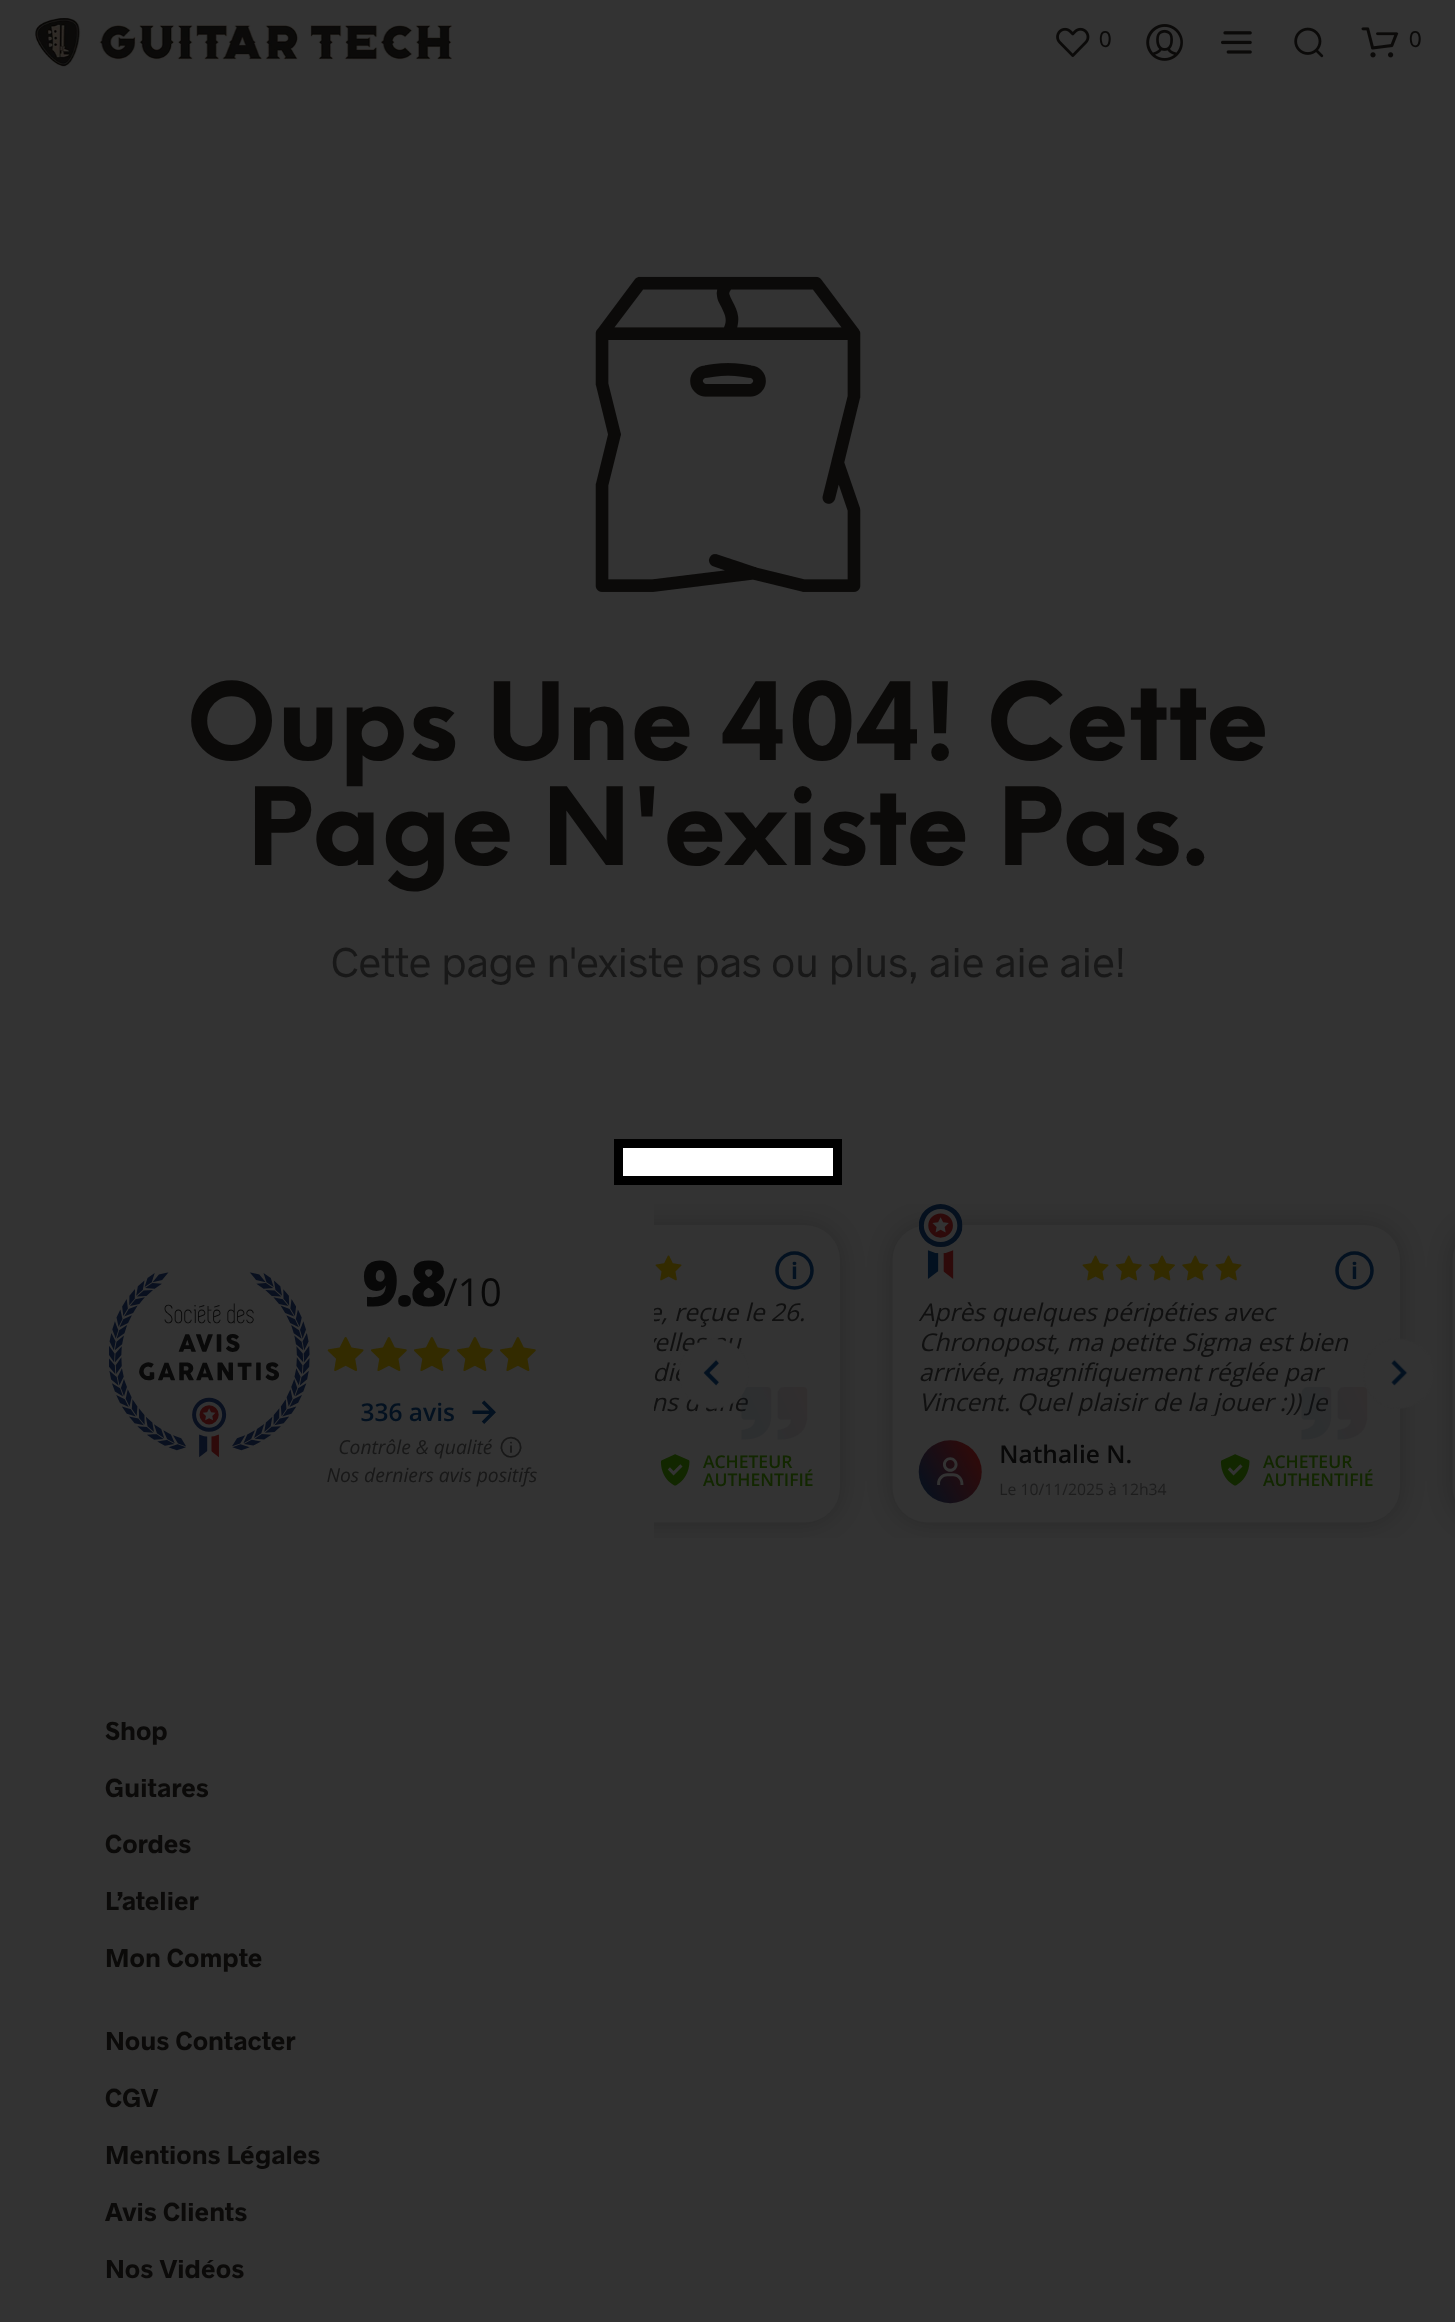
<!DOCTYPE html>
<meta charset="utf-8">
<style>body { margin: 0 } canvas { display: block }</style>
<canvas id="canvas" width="1455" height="2322"></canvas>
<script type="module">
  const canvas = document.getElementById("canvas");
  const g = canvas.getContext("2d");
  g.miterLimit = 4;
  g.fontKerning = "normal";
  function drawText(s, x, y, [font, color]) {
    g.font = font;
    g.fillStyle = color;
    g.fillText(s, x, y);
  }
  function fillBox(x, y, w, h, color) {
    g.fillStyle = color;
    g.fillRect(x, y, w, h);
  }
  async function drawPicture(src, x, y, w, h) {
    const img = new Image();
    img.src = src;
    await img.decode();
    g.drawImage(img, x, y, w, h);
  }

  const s1 = ["23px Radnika", "#0B0A09"];
  const s2 = ["bold 105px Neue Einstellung", "#0B0A09"];
  const s3 = ["42px Radnika", "#181818"];
  const s4 = ["bold 26.25px Radnika", "#0B0A09"];

  fillBox(0, 0, 1455, 2322, "#333333");
  await drawPicture("pic1.png", 35, 18, 417, 49);
  await drawPicture("pic2.png", 1056, 27, 34, 30);
  drawText("0", 1099, 47, s1);
  await drawPicture("pic3.png", 1146, 24, 37, 37);
  await drawPicture("pic4.png", 1221, 31, 31, 23);
  await drawPicture("pic5.png", 1294, 27, 30, 31);
  await drawPicture("pic6.png", 1361, 27, 38, 31);
  drawText("0", 1409, 47, s1);
  await drawPicture("pic7.png", 595, 276, 266, 316);
  drawText("Oups Une 404! Cette", 186, 760, s2);
  drawText("Page N'existe Pas.", 247, 865, s2);
  drawText("Cette page n'existe pas ou plus, aie aie aie!", 331, 977, s3);
  await drawPicture("pic8.png", 109, 1204, 1346, 334);
  drawText("Shop", 105, 1740, s4);
  drawText("Guitares", 105, 1797, s4);
  drawText("Cordes", 105, 1853, s4);
  drawText("L’atelier", 105, 1910, s4);
  drawText("Mon Compte", 105, 1967, s4);
  drawText("Nous Contacter", 105, 2050, s4);
  drawText("CGV", 105, 2107, s4);
  drawText("Mentions Légales", 105, 2164, s4);
  drawText("Avis Clients", 105, 2221, s4);
  drawText("Nos Vidéos", 105, 2278, s4);
  g.fillStyle = "#FFFFFF";
  g.beginPath();
  g.rect(618.5, 1143.5, 219, 37);
  g.fill();
  g.strokeStyle = "#000000";
  g.lineWidth = 9;
  g.stroke();
</script>
